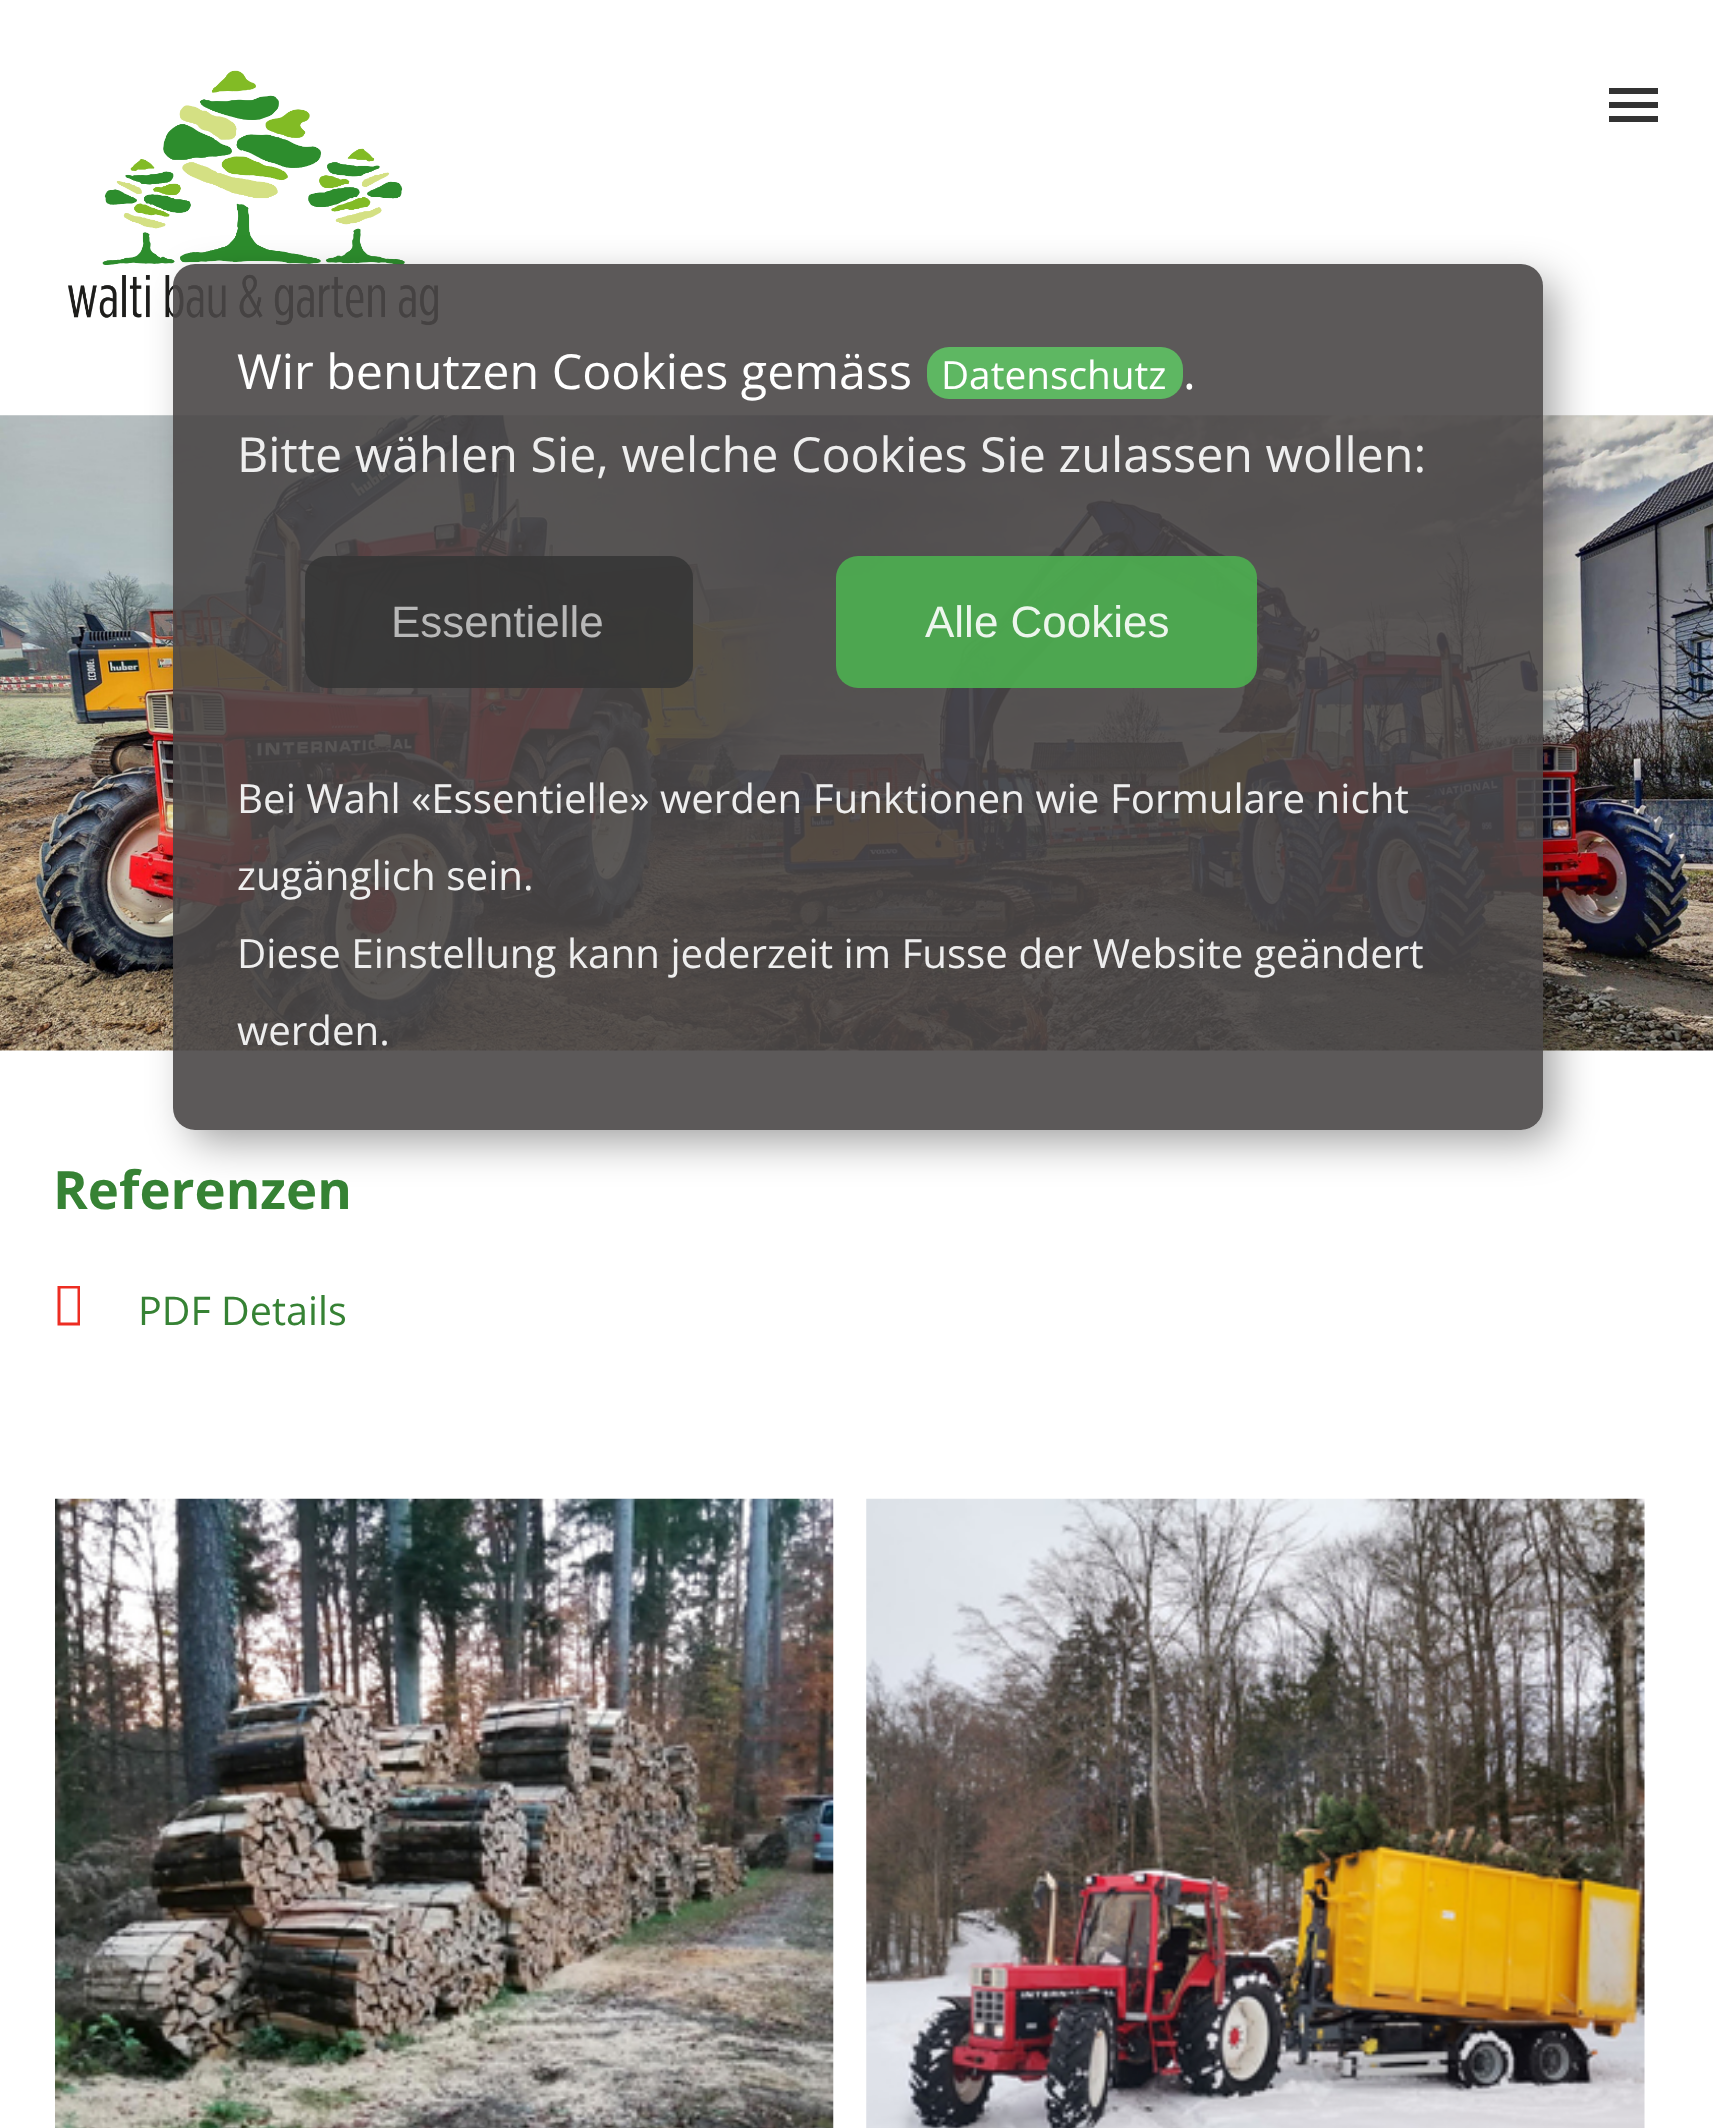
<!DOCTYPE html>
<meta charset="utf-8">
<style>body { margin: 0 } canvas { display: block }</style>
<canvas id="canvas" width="1713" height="2128"></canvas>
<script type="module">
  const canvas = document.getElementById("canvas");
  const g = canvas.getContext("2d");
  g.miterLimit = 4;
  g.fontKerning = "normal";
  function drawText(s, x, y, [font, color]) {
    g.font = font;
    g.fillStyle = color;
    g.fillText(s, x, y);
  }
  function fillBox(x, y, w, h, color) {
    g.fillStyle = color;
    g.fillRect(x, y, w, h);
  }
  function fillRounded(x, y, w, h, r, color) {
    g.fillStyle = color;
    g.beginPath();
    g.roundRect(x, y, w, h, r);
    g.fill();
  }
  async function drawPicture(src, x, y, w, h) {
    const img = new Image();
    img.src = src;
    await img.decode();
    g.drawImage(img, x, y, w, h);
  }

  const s1 = ["48.4px Open Sans", "#FFFFFF"];
  const s2 = ["38.75px Open Sans", "#FFFFFF"];
  const s3 = ["48.4px Open Sans", "#EEEEEE"];
  const s4 = ["44px Liberation Sans", "#B8B8B8"];
  const s5 = ["44px Liberation Sans", "#EDF6ED"];
  const s6 = ["40.3px Open Sans", "#EEEEEE"];
  const s7 = ["bold 52.75px Open Sans", "#368234"];
  const s8 = ["39.5px Open Sans", "#368234"];

  fillBox(0, 0, 1713, 2128, "#FFFFFF");
  await drawPicture("pic1.png", 68, 70, 370, 256);
  await drawPicture("pic2.png", 0, 415, 1713, 636);
  g.save();
  g.beginPath();
  g.moveTo(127, 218);
  g.lineTo(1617, 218);
  g.lineTo(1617, 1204);
  g.lineTo(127, 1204);
  g.closePath();
  g.moveTo(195, 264);
  g.lineTo(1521, 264);
  g.bezierCurveTo(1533, 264, 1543, 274, 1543, 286);
  g.lineTo(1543, 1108);
  g.bezierCurveTo(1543, 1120, 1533, 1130, 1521, 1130);
  g.lineTo(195, 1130);
  g.bezierCurveTo(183, 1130, 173, 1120, 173, 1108);
  g.lineTo(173, 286);
  g.bezierCurveTo(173, 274, 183, 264, 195, 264);
  g.closePath();
  g.clip("evenodd");
  g.fillStyle = "rgba(0, 0, 0, 0.38)";
  g.filter = "blur(20.5px)";
  g.beginPath();
  g.roundRect(190, 281, 1364, 860, 19);
  g.fill();
  g.filter = "none";
  g.restore();
  fillRounded(173, 264, 1370, 866, 22, "rgba(74, 71, 71, 0.9)");
  drawText("Wir benutzen Cookies gemäss", 237, 389, s1);
  fillRounded(927, 347, 256, 52, 22, "#5EB762");
  drawText("Datenschutz", 941, 389, s2);
  drawText(".", 1183, 389, s1);
  drawText("Bitte wählen Sie, welche Cookies Sie zulassen wollen:", 237, 472, s3);
  fillRounded(305, 556, 388, 132, 22, "rgba(54, 54, 54, 0.9)");
  drawText("Essentielle", 391, 637, s4);
  fillRounded(836, 556, 421, 132, 22, "rgba(76, 175, 80, 0.9)");
  drawText("Alle Cookies", 925, 637, s5);
  drawText("Bei Wahl «Essentielle» werden Funktionen wie Formulare nicht", 237, 813, s6);
  drawText("zugänglich sein.", 237, 890, s6);
  drawText("Diese Einstellung kann jederzeit im Fusse der Website geändert", 237, 968, s6);
  drawText("werden.", 237, 1045, s6);
  fillBox(1609, 102, 49, 6, "#333333");
  fillBox(1609, 88, 49, 6, "#333333");
  fillBox(1609, 116, 49, 6, "#333333");
  drawText("Referenzen", 53, 1209, s7);
  g.fillStyle = "#ED2D22";
  g.beginPath();
  g.moveTo(57.5, 1325.5);
  g.lineTo(57.5, 1286);
  g.lineTo(80, 1286);
  g.lineTo(80, 1325.5);
  g.closePath();
  g.moveTo(60.5, 1322.5);
  g.lineTo(77.5, 1322.5);
  g.lineTo(77.5, 1288.5);
  g.lineTo(60.5, 1288.5);
  g.closePath();
  g.fill();
  drawText("PDF Details", 138, 1325, s8);
  await drawPicture("pic3.png", 55, 1498, 779, 630);
  await drawPicture("pic4.png", 866, 1498, 779, 630);
</script>
